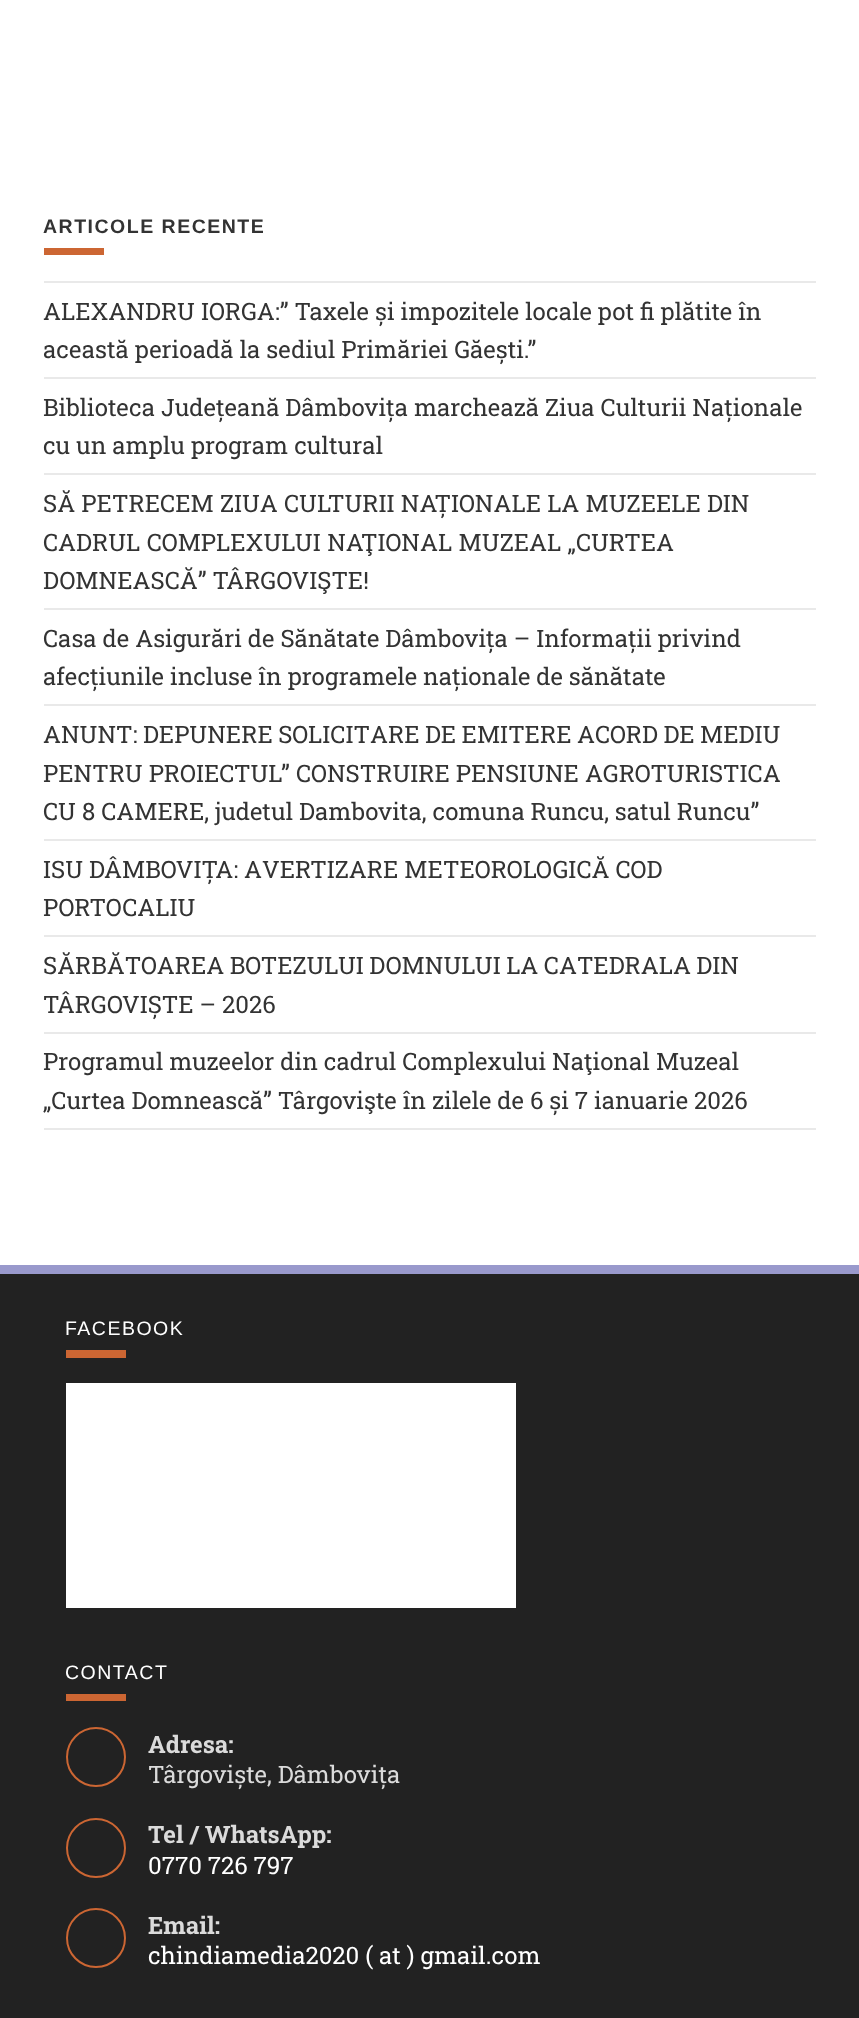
<!DOCTYPE html>
<meta charset="utf-8">
<style>body { margin: 0 } canvas { display: block }</style>
<canvas id="canvas" width="859" height="2018"></canvas>
<script type="module">
  const canvas = document.getElementById("canvas");
  const g = canvas.getContext("2d");
  g.miterLimit = 4;
  g.fontKerning = "normal";
  function drawText(s, x, y, [font, color]) {
    g.font = font;
    g.fillStyle = color;
    g.fillText(s, x, y);
  }
  function fillBox(x, y, w, h, color) {
    g.fillStyle = color;
    g.fillRect(x, y, w, h);
  }

  const s1 = ["bold 19.5px Liberation Sans", "#333333"];
  const s2 = ["24px Roboto Slab", "#333333"];
  const s3 = ["19.5px Liberation Sans", "#FFFFFF"];
  const s4 = ["bold 24px Roboto Slab", "#DBDBDB"];
  const s5 = ["24px Roboto Slab", "#DBDBDB"];
  const s6 = ["24px Roboto Slab", "#FFFFFF"];

  fillBox(0, 0, 859, 2018, "#FFFFFF");
  g.letterSpacing = "1.5px";
  drawText("ARTICOLE RECENTE", 43, 233, s1);
  fillBox(44, 248, 60, 7, "#CC6633");
  fillBox(44, 281, 772, 2, "#E9E9E9");
  fillBox(44, 377, 772, 2, "#E9E9E9");
  g.letterSpacing = "0px";
  drawText("ALEXANDRU IORGA:” Taxele și impozitele locale pot fi plătite în", 43, 320, s2);
  drawText("această perioadă la sediul Primăriei Găești.”", 43, 358, s2);
  fillBox(44, 473, 772, 2, "#E9E9E9");
  drawText("Biblioteca Județeană Dâmbovița marchează Ziua Culturii Naționale", 43, 416, s2);
  drawText("cu un amplu program cultural", 43, 454, s2);
  fillBox(44, 608, 772, 2, "#E9E9E9");
  g.wordSpacing = "0.25px";
  drawText("SĂ PETRECEM ZIUA CULTURII NAȚIONALE LA MUZEELE DIN", 43, 512, s2);
  g.wordSpacing = "0.5px";
  drawText("CADRUL COMPLEXULUI NAŢIONAL MUZEAL „CURTEA", 43, 551, s2);
  g.wordSpacing = "0px";
  drawText("DOMNEASCĂ” TÂRGOVIŞTE!", 43, 589, s2);
  fillBox(44, 704, 772, 2, "#E9E9E9");
  drawText("Casa de Asigurări de Sănătate Dâmbovița – Informații privind", 43, 647, s2);
  drawText("afecțiunile incluse în programele naționale de sănătate", 43, 685, s2);
  fillBox(44, 839, 772, 2, "#E9E9E9");
  g.wordSpacing = "-0.5px";
  drawText("ANUNT: DEPUNERE SOLICITARE DE EMITERE ACORD DE MEDIU", 43, 743, s2);
  g.wordSpacing = "0px";
  drawText("PENTRU PROIECTUL”", 43, 782, s2);
  drawText("CONSTRUIRE PENSIUNE AGROTURISTICA", 296, 782, s2);
  drawText("CU 8 CAMERE, judetul Dambovita, comuna Runcu, satul Runcu”", 43, 820, s2);
  fillBox(44, 935, 772, 2, "#E9E9E9");
  drawText("ISU DÂMBOVIȚA: AVERTIZARE METEOROLOGICĂ COD", 43, 878, s2);
  drawText("PORTOCALIU", 43, 916, s2);
  fillBox(44, 1032, 772, 2, "#E9E9E9");
  g.wordSpacing = "-0.5px";
  drawText("SĂRBĂTOAREA BOTEZULUI DOMNULUI LA CATEDRALA DIN", 43, 974, s2);
  g.wordSpacing = "0px";
  drawText("TÂRGOVIȘTE – 2026", 43, 1013, s2);
  fillBox(44, 1128, 772, 2, "#E9E9E9");
  drawText("Programul muzeelor din cadrul Complexului Naţional Muzeal", 43, 1070, s2);
  drawText("„Curtea Domnească” Târgovişte în zilele de 6 și 7 ianuarie 2026", 43, 1109, s2);
  fillBox(0, 1274, 859, 744, "#222222");
  fillBox(0, 1265, 859, 9, "#9999CC");
  g.letterSpacing = "1.5px";
  drawText("FACEBOOK", 65, 1335, s3);
  fillBox(66, 1350, 60, 8, "#CC6633");
  fillBox(66, 1383, 450, 225, "#FFFFFF");
  drawText("CONTACT", 65, 1679, s3);
  fillBox(66, 1694, 60, 7, "#CC6633");
  g.beginPath();
  g.arc(96, 1757, 29, 0, Math.PI * 2);
  g.strokeStyle = "#CC6633";
  g.lineWidth = 2;
  g.stroke();
  g.letterSpacing = "0px";
  drawText("Adresa:", 148, 1753, s4);
  drawText("Târgoviște, Dâmbovița", 148, 1783, s5);
  g.beginPath();
  g.arc(96, 1848, 29, 0, Math.PI * 2);
  g.stroke();
  drawText("Tel / WhatsApp:", 148, 1843, s4);
  drawText("0770 726 797", 148, 1874, s6);
  g.beginPath();
  g.arc(96, 1938, 29, 0, Math.PI * 2);
  g.stroke();
  drawText("Email:", 148, 1934, s4);
  drawText("chindiamedia2020 ( at ) gmail.com", 148, 1964, s6);
</script>
